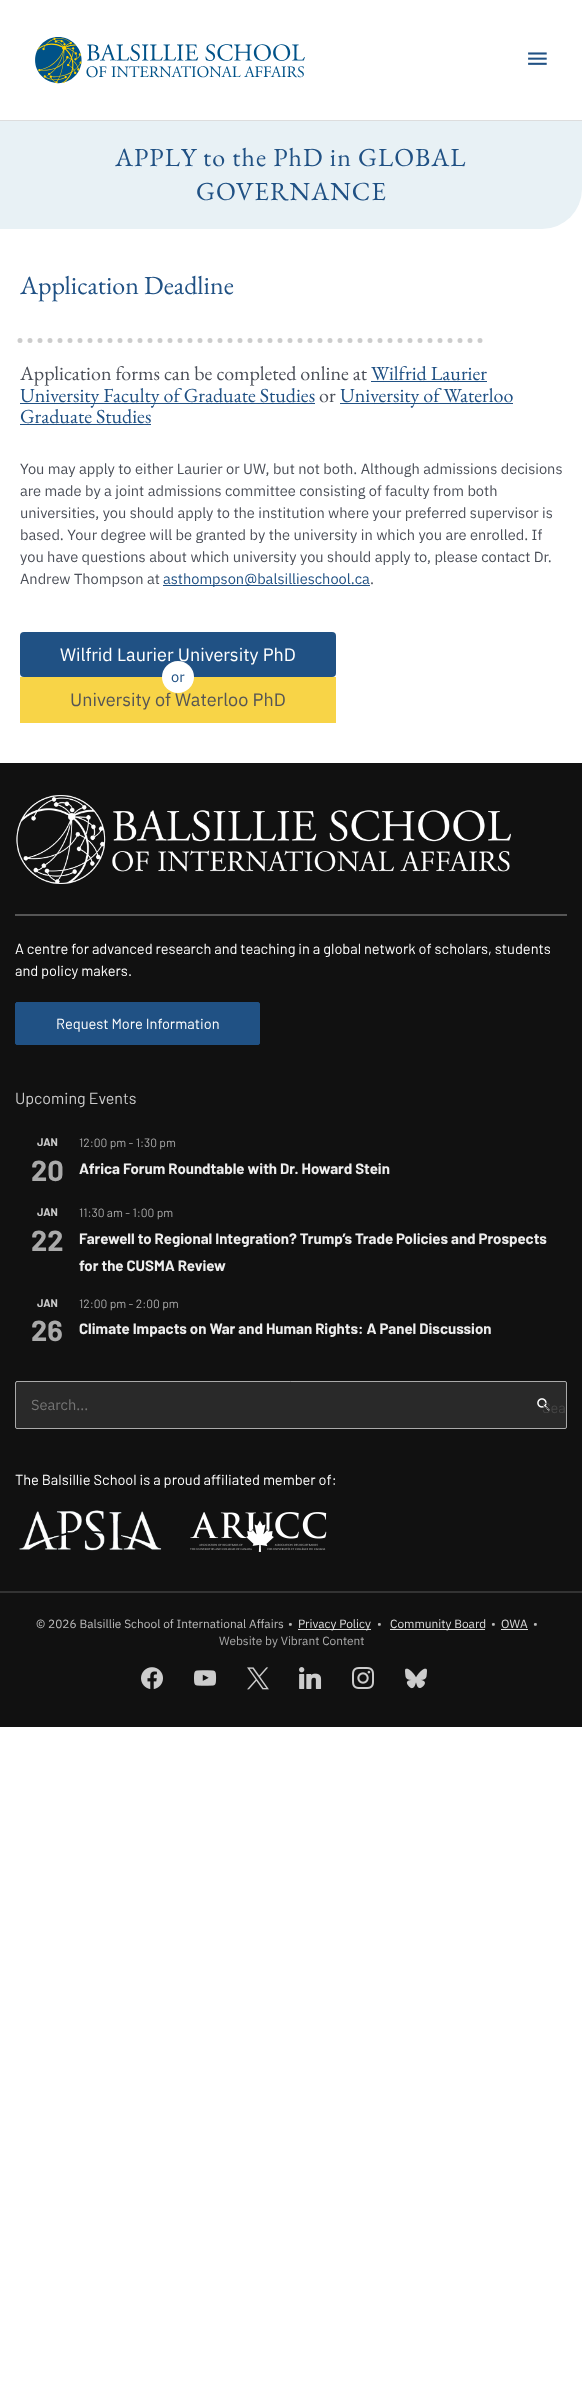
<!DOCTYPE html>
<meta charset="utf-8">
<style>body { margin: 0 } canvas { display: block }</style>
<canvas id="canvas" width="582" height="2405"></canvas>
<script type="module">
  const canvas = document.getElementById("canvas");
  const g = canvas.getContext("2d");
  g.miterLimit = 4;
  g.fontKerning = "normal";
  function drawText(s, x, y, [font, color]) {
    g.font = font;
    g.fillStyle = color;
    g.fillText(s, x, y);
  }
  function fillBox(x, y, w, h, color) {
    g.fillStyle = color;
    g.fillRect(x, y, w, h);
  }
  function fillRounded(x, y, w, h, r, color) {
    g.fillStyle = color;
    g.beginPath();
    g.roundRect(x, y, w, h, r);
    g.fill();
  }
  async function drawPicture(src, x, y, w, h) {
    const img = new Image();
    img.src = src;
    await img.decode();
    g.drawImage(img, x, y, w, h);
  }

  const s1 = ["26px EB Garamond", "#205184"];
  const s2 = ["20px EB Garamond", "#4B4F58"];
  const s3 = ["20px EB Garamond", "#205184"];
  const s4 = ["14.6px IBM Plex Sans", "#4B4F58"];
  const s5 = ["14.6px IBM Plex Sans", "#205184"];
  const s6 = ["18px IBM Plex Sans", "#FFFFFF"];
  const s7 = ["18px IBM Plex Sans", "#555555"];
  const s8 = ["14.6px Barlow", "#FFFFFF"];
  const s9 = ["16px Barlow", "#CCCCCC"];
  const s10 = ["bold 11px Barlow", "#CCCCCC"];
  const s11 = ["bold 29px Barlow", "#AAAAAA"];
  const s12 = ["12px Barlow", "#AAAAAA"];
  const s13 = ["bold 15px Barlow", "#EEEEEE"];
  const s14 = ["14.6px IBM Plex Sans", "#757575"];
  const s15 = ["14.6px Barlow", "#454545"];
  const s16 = ["11.9px IBM Plex Sans", "#BBBBBB"];
  const s17 = ["11.9px IBM Plex Sans", "#DDDDDD"];
  const s18 = ["11.9px IBM Plex Sans", "#AAAAAA"];

  fillBox(0, 0, 582, 2405, "#FFFFFF");
  fillBox(0, 120, 582, 1, "#DDDDDD");
  await drawPicture("pic1.png", 35, 37, 270, 47);
  await drawPicture("pic2.png", 528, 52, 19, 13);
  g.fillStyle = "#E8F1F5";
  g.beginPath();
  g.roundRect(0, 121, 582, 108, [0, 0, 40, 0]);
  g.fill();
  g.letterSpacing = "1px";
  drawText("APPLY to the PhD in GLOBAL", 115, 166, s1);
  drawText("GOVERNANCE", 196, 200, s1);
  g.letterSpacing = "0px";
  drawText("Application Deadline", 20, 294, s1);
  g.beginPath();
  g.moveTo(20, 340.5);
  g.lineTo(481, 340.5);
  g.strokeStyle = "#CCCCCC";
  g.lineWidth = 5;
  g.lineCap = "round";
  g.setLineDash([0, 10]);
  g.stroke();
  drawText("Application forms can be completed online at", 20, 380, s2);
  drawText("Wilfrid Laurier", 371, 380, s3);
  fillBox(371, 381, 116, 1, "#205184");
  fillBox(20, 403, 295, 1, "#205184");
  drawText("University Faculty of Graduate Studies", 20, 402, s3);
  drawText("or", 319, 402, s2);
  fillBox(340, 403, 173, 1, "#205184");
  drawText("University of Waterloo", 340, 402, s3);
  drawText("Graduate Studies", 20, 423, s3);
  fillBox(20, 424, 131, 1, "#205184");
  drawText("You may apply to either Laurier or UW, but not both. Although admissions decisions", 20, 474, s4);
  drawText("are made by a joint admissions committee consisting of faculty from both", 20, 496, s4);
  drawText("universities, you should apply to the institution where your preferred supervisor is", 20, 518, s4);
  drawText("based. Your degree will be granted by the university in which you are enrolled. If", 20, 540, s4);
  drawText("you have questions about which university you should apply to, please contact Dr.", 20, 562, s4);
  drawText("Andrew Thompson at", 20, 584, s4);
  fillBox(163, 585, 207, 1, "#205184");
  drawText("asthompson@balsillieschool.ca", 163, 584, s5);
  drawText(".", 370, 584, s4);
  fillRounded(20, 632, 316, 45, 4, "#205184");
  drawText("Wilfrid Laurier University PhD", 60, 661, s6);
  fillBox(20, 677, 316, 46, "#F8D447");
  drawText("University of Waterloo PhD", 70, 706, s7);
  g.fillStyle = "#FFFFFF";
  g.beginPath();
  g.arc(178, 677, 16, 0, Math.PI * 2);
  g.fill();
  drawText("or", 171, 682, s5);
  fillBox(0, 763, 582, 828, "#111111");
  await drawPicture("pic3.png", 16, 795, 495, 89);
  fillBox(15, 914, 552, 2, "#555555");
  drawText("A centre for advanced research and teaching in a global network of scholars, students", 15, 954, s8);
  drawText("and policy makers.", 15, 976, s8);
  g.fillStyle = "#205184";
  g.beginPath();
  g.roundRect(15.5, 1002.5, 244, 42, 1.5);
  g.fill();
  g.strokeStyle = "#205184";
  g.lineWidth = 1;
  g.setLineDash([]);
  g.stroke();
  drawText("Request More Information", 56, 1029, s8);
  drawText("Upcoming Events", 15, 1104, s9);
  drawText("JAN", 37, 1146, s10);
  drawText("20", 31, 1181, s11);
  drawText("12:00 pm - 1:30 pm", 79, 1147, s12);
  drawText("Africa Forum Roundtable with Dr. Howard Stein", 79, 1174, s13);
  drawText("JAN", 37, 1216, s10);
  drawText("22", 31, 1251, s11);
  drawText("11:30 am - 1:00 pm", 79, 1217, s12);
  drawText("Farewell to Regional Integration? Trump’s Trade Policies and Prospects", 79, 1244, s13);
  drawText("for the CUSMA Review", 79, 1271, s13);
  drawText("JAN", 37, 1307, s10);
  drawText("26", 31, 1341, s11);
  drawText("12:00 pm - 2:00 pm", 79, 1308, s12);
  drawText("Climate Impacts on War and Human Rights: A Panel Discussion", 79, 1334, s13);
  g.fillStyle = "#292929";
  g.beginPath();
  g.roundRect(15.5, 1381.5, 551, 47, 1.5);
  g.fill();
  g.strokeStyle = "#AAAAAA";
  g.stroke();
  drawText("Search...", 31, 1410, s14);
  await drawPicture("pic4.png", 537, 1398, 13, 13);
  drawText("Sea", 542, 1413, s15);
  drawText("The Balsillie School is a proud affiliated member of:", 15, 1485, s8);
  await drawPicture("pic5.png", 19, 1510, 143, 41);
  await drawPicture("pic6.png", 190, 1512, 137, 40);
  fillBox(0, 1591, 582, 2, "#333333");
  fillBox(0, 1593, 582, 134, "#111111");
  drawText("© 2026 Balsillie School of International Affairs", 36, 1628, s16);
  drawText("•", 288, 1628, s16);
  fillBox(298, 1629, 73, 1, "#DDDDDD");
  drawText("Privacy Policy", 298, 1628, s17);
  drawText("•", 377, 1628, s16);
  fillBox(390, 1629, 95, 1, "#DDDDDD");
  drawText("Community Board", 390, 1628, s17);
  drawText("•", 491, 1628, s16);
  drawText("OWA", 501, 1628, s17);
  fillBox(501, 1629, 27, 1, "#DDDDDD");
  drawText("•", 533, 1628, s16);
  drawText("Website by Vibrant Content", 219, 1645, s18);
  await drawPicture("pic7.png", 141, 1667, 22, 22);
  await drawPicture("pic8.png", 194, 1670, 23, 16);
  await drawPicture("pic9.png", 247, 1667, 22, 23);
  await drawPicture("pic10.png", 299, 1667, 23, 22);
  await drawPicture("pic11.png", 352, 1667, 22, 22);
  await drawPicture("pic12.png", 405, 1668, 22, 21);
</script>
